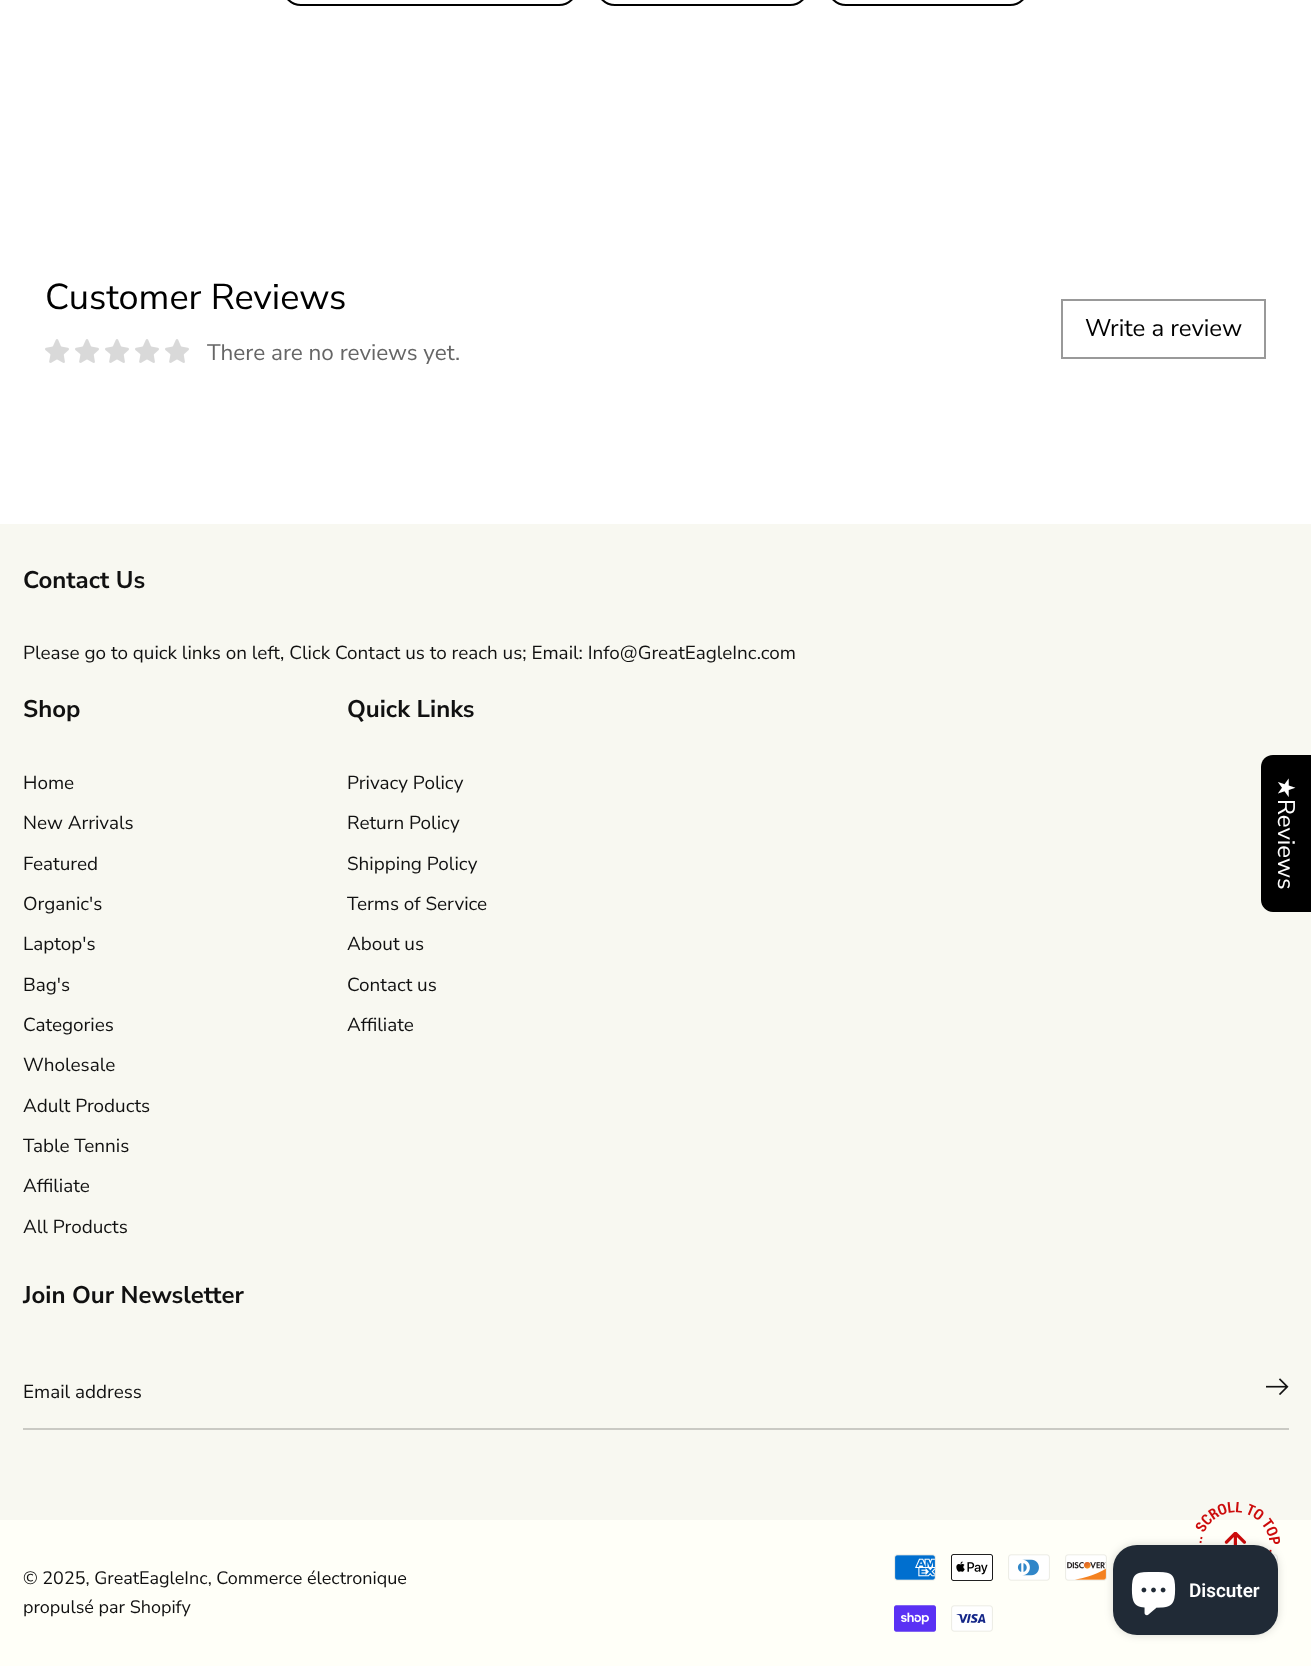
<!DOCTYPE html>
<meta charset="utf-8">
<style>body { margin: 0 } canvas { display: block }</style>
<canvas id="canvas" width="1311" height="1666"></canvas>
<script type="module">
  const canvas = document.getElementById("canvas");
  const g = canvas.getContext("2d");
  g.miterLimit = 4;
  g.fontKerning = "normal";
  function drawText(s, x, y, [font, color]) {
    g.font = font;
    g.fillStyle = color;
    g.fillText(s, x, y);
  }
  function fillBox(x, y, w, h, color) {
    g.fillStyle = color;
    g.fillRect(x, y, w, h);
  }
  function fillRounded(x, y, w, h, r, color) {
    g.fillStyle = color;
    g.beginPath();
    g.roundRect(x, y, w, h, r);
    g.fill();
  }
  async function drawPicture(src, x, y, w, h) {
    const img = new Image();
    img.src = src;
    await img.decode();
    g.drawImage(img, x, y, w, h);
  }

  const s1 = ["36px Nunito Sans", "#000000"];
  const s2 = ["24px Nunito Sans", "#000000"];
  const s3 = ["22.5px Nunito Sans", "#666666"];
  const s4 = ["bold 24px Nunito Sans", "#111111"];
  const s5 = ["18.9px Nunito Sans", "#111111"];
  const s6 = ["18px Nunito Sans", "#111111"];
  const s7 = ["600 18.9px Roboto", "#FFFFFF"];

  fillBox(0, 0, 1311, 1666, "#FFFFFF");
  g.beginPath();
  g.roundRect(283, -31, 294, 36, 29);
  g.strokeStyle = "#000000";
  g.lineWidth = 2;
  g.stroke();
  g.beginPath();
  g.roundRect(597, -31, 211, 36, 29);
  g.stroke();
  g.beginPath();
  g.roundRect(828, -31, 200, 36, 29);
  g.stroke();
  drawText("Customer Reviews", 45, 309, s1);
  g.strokeStyle = "#999999";
  g.strokeRect(1062, 300, 203, 58);
  drawText("Write a review", 1085, 336, s2);
  await drawPicture("pic1.png", 45, 339, 24, 24);
  await drawPicture("pic1.png", 75, 339, 24, 24);
  await drawPicture("pic1.png", 105, 339, 24, 24);
  await drawPicture("pic1.png", 135, 339, 24, 24);
  await drawPicture("pic1.png", 165, 339, 24, 24);
  drawText("There are no reviews yet.", 207, 360, s3);
  fillBox(0, 524, 1311, 996, "#F8F8F1");
  drawText("Contact Us", 23, 588, s4);
  drawText("Please go to quick links on left, Click Contact us to reach us; Email: Info@GreatEagleInc.com", 23, 659, s5);
  drawText("Shop", 23, 717, s4);
  drawText("Home", 23, 789, s5);
  drawText("New Arrivals", 23, 829, s5);
  drawText("Featured", 23, 870, s5);
  drawText("Organic's", 23, 910, s5);
  drawText("Laptop's", 23, 950, s5);
  drawText("Bag's", 23, 991, s5);
  drawText("Categories", 23, 1031, s5);
  drawText("Wholesale", 23, 1071, s5);
  drawText("Adult Products", 23, 1112, s5);
  drawText("Table Tennis", 23, 1152, s5);
  drawText("Affiliate", 23, 1192, s5);
  drawText("All Products", 23, 1233, s5);
  drawText("Quick Links", 347, 717, s4);
  drawText("Privacy Policy", 347, 789, s5);
  drawText("Return Policy", 347, 829, s5);
  drawText("Shipping Policy", 347, 870, s5);
  drawText("Terms of Service", 347, 910, s5);
  drawText("About us", 347, 950, s5);
  drawText("Contact us", 347, 991, s5);
  drawText("Affiliate", 347, 1031, s5);
  drawText("Join Our Newsletter", 23, 1303, s4);
  fillBox(23, 1428, 1266, 2, "#CACAC4");
  drawText("Email address", 23, 1398, s5);
  await drawPicture("pic2.png", 1266, 1378, 23, 17);
  fillBox(0, 1520, 1311, 146, "#FFFFF8");
  drawText("© 2025, GreatEagleInc, Commerce électronique", 23, 1584, s6);
  drawText("propulsé par Shopify", 23, 1613, s6);
  await drawPicture("pic3.png", 894, 1554, 42, 27);
  await drawPicture("pic4.png", 951, 1554, 42, 27);
  await drawPicture("pic5.png", 1008, 1554, 42, 27);
  await drawPicture("pic6.png", 1065, 1554, 42, 27);
  await drawPicture("pic7.png", 1272, 1554, 6, 15);
  await drawPicture("pic8.png", 894, 1605, 42, 27);
  await drawPicture("pic9.png", 951, 1605, 42, 27);
  await drawPicture("pic11.png", 1224, 1532, 23, 13);
  await drawPicture("pic10.png", 1195, 1502, 85, 50);
  g.fillStyle = "#000000";
  g.beginPath();
  g.moveTo(1311, 755);
  g.lineTo(1311, 912);
  g.lineTo(1273, 912);
  g.bezierCurveTo(1266, 912, 1261, 906, 1261, 900);
  g.lineTo(1261, 767);
  g.bezierCurveTo(1261, 760, 1266, 755, 1273, 755);
  g.closePath();
  g.fill();
  g.font = "24px DejaVu Sans";
  g.fillStyle = "#FFFFFF";
  g.save();
  g.translate(1278, 777);
  g.rotate(90 * Math.PI / 180);
  g.fillText("★", 0, 0);
  g.restore();
  g.font = "24px Nunito Sans";
  g.save();
  g.translate(1278, 799);
  g.rotate(90 * Math.PI / 180);
  g.fillText("Reviews", 0, 0);
  g.restore();
  g.fillStyle = "rgba(0, 0, 0, 0.15)";
  g.filter = "blur(4px)";
  g.beginPath();
  g.roundRect(1113, 1545, 165, 90, 24);
  g.fill();
  g.filter = "none";
  fillRounded(1113, 1545, 165, 90, 24, "#202A36");
  await drawPicture("pic12.png", 1131, 1572, 45, 44);
  drawText("Discuter", 1189, 1597, s7);
</script>
